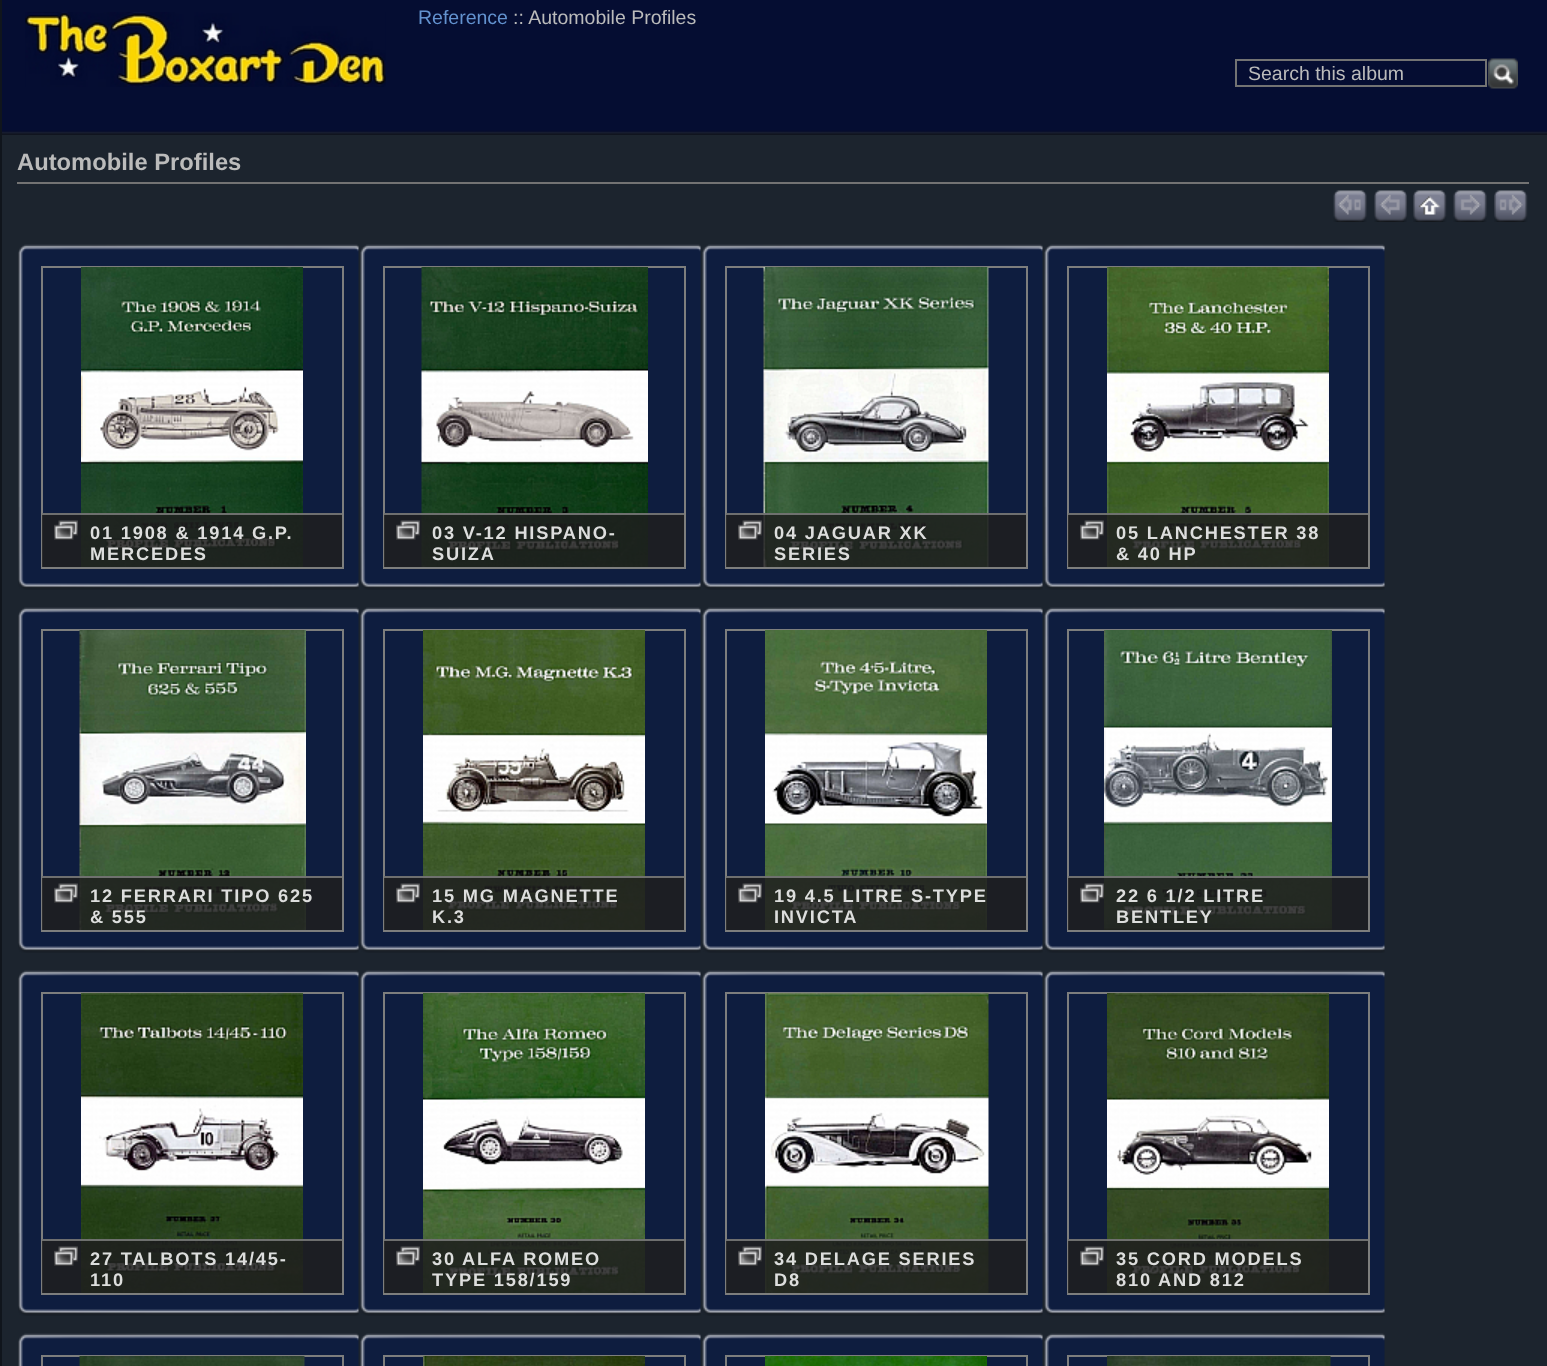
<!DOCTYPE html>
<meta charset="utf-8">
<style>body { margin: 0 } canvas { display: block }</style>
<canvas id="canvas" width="1547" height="1366"></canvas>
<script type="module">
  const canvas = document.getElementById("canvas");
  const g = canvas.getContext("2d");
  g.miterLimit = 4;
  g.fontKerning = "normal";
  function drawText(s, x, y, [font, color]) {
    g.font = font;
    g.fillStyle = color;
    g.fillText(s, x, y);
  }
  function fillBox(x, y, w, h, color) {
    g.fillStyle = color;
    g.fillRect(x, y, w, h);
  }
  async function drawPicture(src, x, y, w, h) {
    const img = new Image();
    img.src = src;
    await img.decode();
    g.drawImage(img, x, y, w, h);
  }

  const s1 = ["19.5px Liberation Sans", "#6392CF"];
  const s2 = ["19.5px Liberation Sans", "#BBBBBB"];
  const s3 = ["bold 23.75px Liberation Sans", "#BBBBBB"];
  const s4 = ["bold 18.25px Liberation Sans", "#DDDEDD"];

  fillBox(0, 0, 1547, 1366, "#1C242E");
  await drawPicture("pic1.png", 2, 0, 1545, 135);
  await drawPicture("pic2.png", 25, 12, 361, 75);
  drawText("Reference", 418, 24, s1);
  drawText(":: Automobile Profiles", 513, 24, s2);
  g.strokeStyle = "#737373";
  g.lineWidth = 2;
  g.strokeRect(1236, 60, 250, 26);
  drawText("Search this album", 1248, 80, s2);
  await drawPicture("pic3.png", 1488, 58, 30, 31);
  fillBox(0, 0, 2, 1366, "#10151C");
  fillBox(17, 182, 1512, 2, "#737373");
  drawText("Automobile Profiles", 17, 170, s3);
  await drawPicture("pic4.png", 1333, 190, 34, 32);
  await drawPicture("pic5.png", 1374, 190, 33, 32);
  await drawPicture("pic6.png", 1413, 190, 34, 32);
  await drawPicture("pic7.png", 1453, 190, 34, 32);
  await drawPicture("pic8.png", 1494, 190, 34, 32);
  await drawPicture("pic9.png", 18, 244, 341, 346);
  g.strokeStyle = "#7D7E7D";
  g.strokeRect(42, 267, 301, 301);
  await drawPicture("pic10.png", 81, 267, 222, 300);
  fillBox(42, 513, 300, 54, "rgba(30, 30, 30, 0.85)");
  await drawPicture("pic11.png", 54, 520, 24, 20);
  fillBox(42, 513, 300, 2, "rgba(125, 126, 125, 0.85)");
  g.letterSpacing = "1.8px";
  drawText("01 1908 & 1914 G.P.", 90, 539, s4);
  drawText("MERCEDES", 90, 560, s4);
  await drawPicture("pic12.png", 360, 244, 341, 346);
  g.strokeRect(384, 267, 301, 301);
  await drawPicture("pic13.png", 421, 267, 227, 300);
  fillBox(384, 513, 300, 54, "rgba(30, 30, 30, 0.85)");
  await drawPicture("pic14.png", 396, 520, 24, 20);
  fillBox(384, 513, 300, 2, "rgba(125, 126, 125, 0.85)");
  drawText("03 V-12 HISPANO-", 432, 539, s4);
  drawText("SUIZA", 432, 560, s4);
  await drawPicture("pic15.png", 702, 244, 341, 346);
  g.strokeRect(726, 267, 301, 301);
  await drawPicture("pic16.png", 763, 267, 226, 300);
  fillBox(726, 513, 300, 54, "rgba(30, 30, 30, 0.85)");
  await drawPicture("pic14.png", 738, 520, 24, 20);
  fillBox(726, 513, 300, 2, "rgba(125, 126, 125, 0.85)");
  drawText("04 JAGUAR XK", 774, 539, s4);
  drawText("SERIES", 774, 560, s4);
  await drawPicture("pic17.png", 1044, 244, 341, 346);
  g.strokeRect(1068, 267, 301, 301);
  await drawPicture("pic18.png", 1107, 267, 222, 300);
  fillBox(1068, 513, 300, 54, "rgba(30, 30, 30, 0.85)");
  await drawPicture("pic14.png", 1080, 520, 24, 20);
  fillBox(1068, 513, 300, 2, "rgba(125, 126, 125, 0.85)");
  drawText("05 LANCHESTER 38", 1116, 539, s4);
  drawText("& 40 HP", 1116, 560, s4);
  await drawPicture("pic9.png", 18, 607, 341, 346);
  g.strokeRect(42, 630, 301, 301);
  await drawPicture("pic19.png", 79, 630, 227, 300);
  fillBox(42, 876, 300, 54, "rgba(30, 30, 30, 0.85)");
  await drawPicture("pic11.png", 54, 883, 24, 20);
  fillBox(42, 876, 300, 2, "rgba(125, 126, 125, 0.85)");
  drawText("12 FERRARI TIPO 625", 90, 902, s4);
  drawText("& 555", 90, 923, s4);
  await drawPicture("pic12.png", 360, 607, 341, 346);
  g.strokeRect(384, 630, 301, 301);
  await drawPicture("pic20.png", 423, 630, 222, 300);
  fillBox(384, 876, 300, 54, "rgba(30, 30, 30, 0.85)");
  await drawPicture("pic14.png", 396, 883, 24, 20);
  fillBox(384, 876, 300, 2, "rgba(125, 126, 125, 0.85)");
  drawText("15 MG MAGNETTE", 432, 902, s4);
  drawText("K.3", 432, 923, s4);
  await drawPicture("pic15.png", 702, 607, 341, 346);
  g.strokeRect(726, 630, 301, 301);
  await drawPicture("pic21.png", 765, 630, 222, 300);
  fillBox(726, 876, 300, 54, "rgba(30, 30, 30, 0.85)");
  await drawPicture("pic14.png", 738, 883, 24, 20);
  fillBox(726, 876, 300, 2, "rgba(125, 126, 125, 0.85)");
  drawText("19 4.5 LITRE S-TYPE", 774, 902, s4);
  drawText("INVICTA", 774, 923, s4);
  await drawPicture("pic17.png", 1044, 607, 341, 346);
  g.strokeRect(1068, 630, 301, 301);
  await drawPicture("pic22.png", 1104, 630, 228, 300);
  fillBox(1068, 876, 300, 54, "rgba(30, 30, 30, 0.85)");
  await drawPicture("pic14.png", 1080, 883, 24, 20);
  fillBox(1068, 876, 300, 2, "rgba(125, 126, 125, 0.85)");
  drawText("22 6 1/2 LITRE", 1116, 902, s4);
  drawText("BENTLEY", 1116, 923, s4);
  await drawPicture("pic9.png", 18, 970, 341, 346);
  g.strokeRect(42, 993, 301, 301);
  await drawPicture("pic23.png", 81, 993, 222, 300);
  fillBox(42, 1239, 300, 54, "rgba(30, 30, 30, 0.85)");
  await drawPicture("pic11.png", 54, 1246, 24, 20);
  fillBox(42, 1239, 300, 2, "rgba(125, 126, 125, 0.85)");
  drawText("27 TALBOTS 14/45-", 90, 1265, s4);
  drawText("110", 90, 1286, s4);
  await drawPicture("pic12.png", 360, 970, 341, 346);
  g.strokeRect(384, 993, 301, 301);
  await drawPicture("pic24.png", 423, 993, 222, 300);
  fillBox(384, 1239, 300, 54, "rgba(30, 30, 30, 0.85)");
  await drawPicture("pic14.png", 396, 1246, 24, 20);
  fillBox(384, 1239, 300, 2, "rgba(125, 126, 125, 0.85)");
  drawText("30 ALFA ROMEO", 432, 1265, s4);
  drawText("TYPE 158/159", 432, 1286, s4);
  await drawPicture("pic15.png", 702, 970, 341, 346);
  g.strokeRect(726, 993, 301, 301);
  await drawPicture("pic25.png", 765, 993, 224, 300);
  fillBox(726, 1239, 300, 54, "rgba(30, 30, 30, 0.85)");
  await drawPicture("pic14.png", 738, 1246, 24, 20);
  fillBox(726, 1239, 300, 2, "rgba(125, 126, 125, 0.85)");
  drawText("34 DELAGE SERIES", 774, 1265, s4);
  drawText("D8", 774, 1286, s4);
  await drawPicture("pic17.png", 1044, 970, 341, 346);
  g.strokeRect(1068, 993, 301, 301);
  await drawPicture("pic26.png", 1107, 993, 222, 300);
  fillBox(1068, 1239, 300, 54, "rgba(30, 30, 30, 0.85)");
  await drawPicture("pic14.png", 1080, 1246, 24, 20);
  fillBox(1068, 1239, 300, 2, "rgba(125, 126, 125, 0.85)");
  drawText("35 CORD MODELS", 1116, 1265, s4);
  drawText("810 AND 812", 1116, 1286, s4);
  await drawPicture("pic27.png", 18, 1333, 341, 33);
  g.strokeRect(42, 1356, 301, 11);
  await drawPicture("pic28.png", 79, 1356, 226, 10);
  await drawPicture("pic29.png", 360, 1333, 341, 33);
  g.strokeRect(384, 1356, 301, 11);
  await drawPicture("pic30.png", 423, 1356, 222, 10);
  await drawPicture("pic31.png", 702, 1333, 341, 33);
  g.strokeRect(726, 1356, 301, 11);
  await drawPicture("pic32.png", 765, 1356, 222, 10);
  await drawPicture("pic29.png", 1044, 1333, 341, 33);
  g.strokeRect(1068, 1356, 301, 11);
  await drawPicture("pic33.png", 1107, 1356, 224, 10);
</script>
